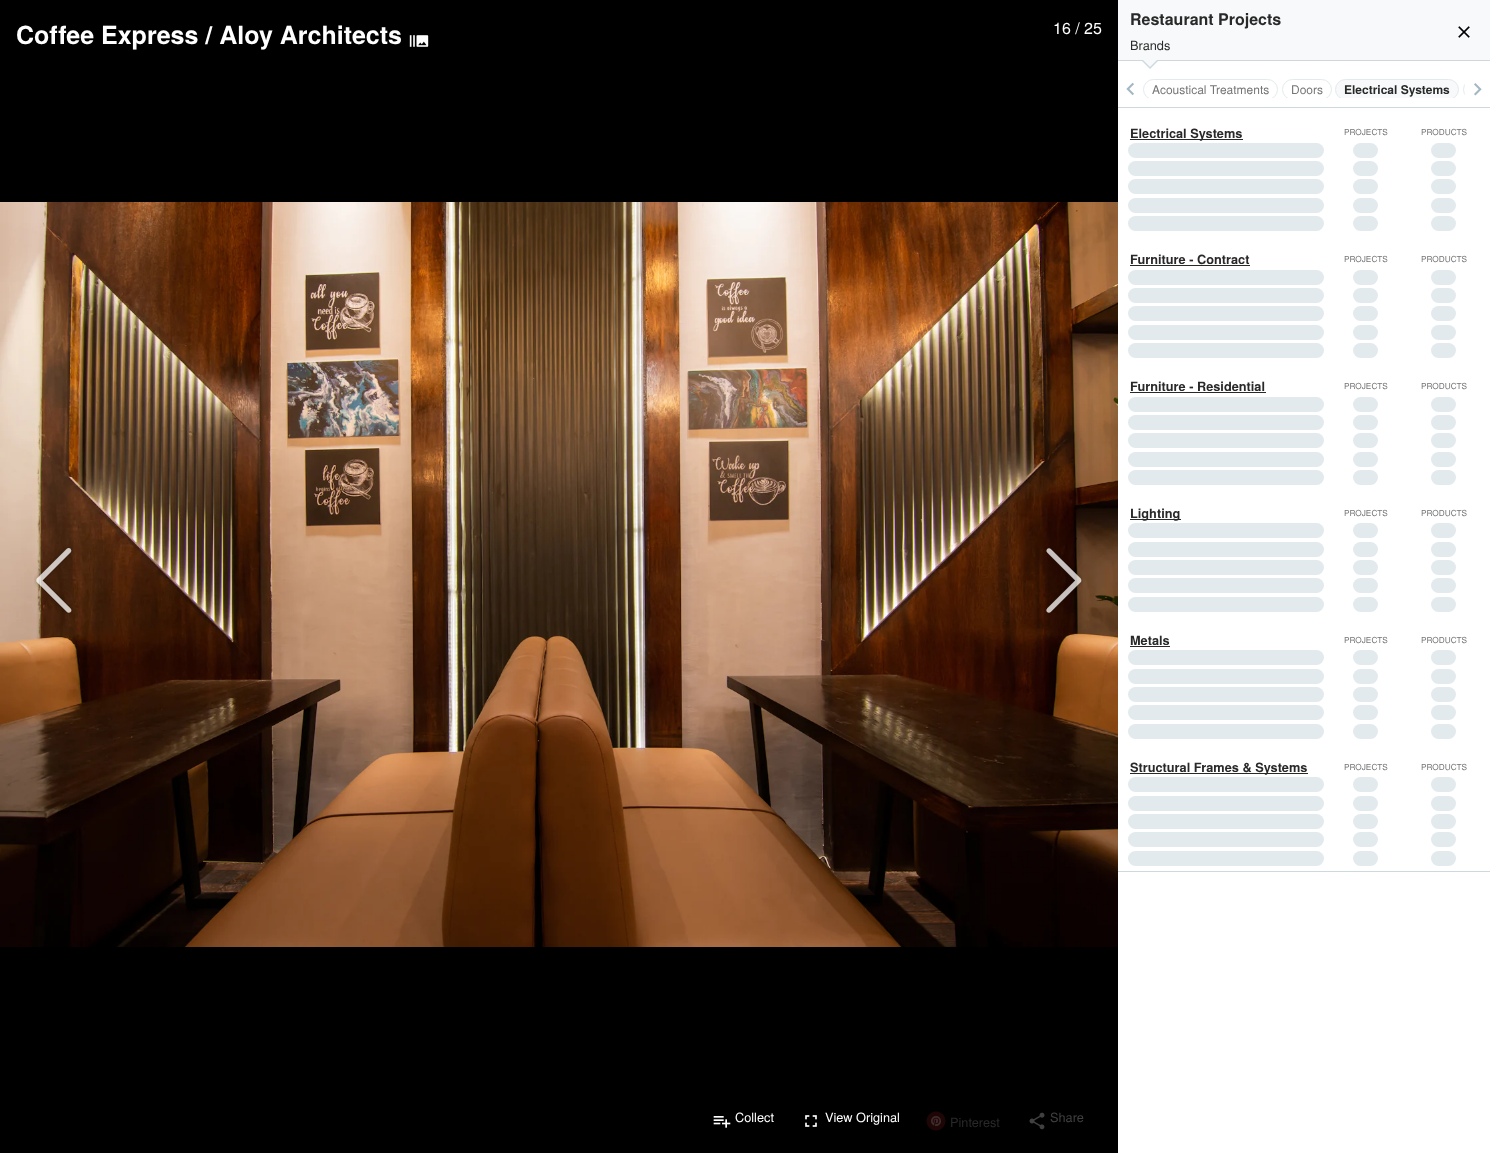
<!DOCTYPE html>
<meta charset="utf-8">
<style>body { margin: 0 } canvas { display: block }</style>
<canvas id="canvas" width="1490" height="1153"></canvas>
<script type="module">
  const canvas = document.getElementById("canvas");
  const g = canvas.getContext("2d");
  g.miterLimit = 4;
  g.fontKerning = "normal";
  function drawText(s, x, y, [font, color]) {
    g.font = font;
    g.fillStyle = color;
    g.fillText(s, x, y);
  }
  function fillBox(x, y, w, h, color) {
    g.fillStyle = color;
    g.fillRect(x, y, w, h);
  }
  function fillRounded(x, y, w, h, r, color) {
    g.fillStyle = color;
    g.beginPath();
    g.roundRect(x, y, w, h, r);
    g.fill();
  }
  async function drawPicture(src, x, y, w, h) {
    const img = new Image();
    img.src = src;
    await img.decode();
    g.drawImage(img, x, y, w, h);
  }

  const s1 = ["bold 25px TeX Gyre Heros", "#FFFFFF"];
  const s2 = ["16px TeX Gyre Heros", "#FFFFFF"];
  const s3 = ["12.75px TeX Gyre Heros", "#FFFFFF"];
  const s4 = ["12.75px TeX Gyre Heros", "#292929"];
  const s5 = ["12.75px TeX Gyre Heros", "#404040"];
  const s6 = ["bold 16px TeX Gyre Heros", "#292929"];
  const s7 = ["12px TeX Gyre Heros", "#757575"];
  const s8 = ["bold 12px TeX Gyre Heros", "#292929"];
  const s9 = ["bold 12.75px TeX Gyre Heros", "#292929"];
  const s10 = ["8.25px TeX Gyre Heros", "#757575"];

  fillBox(0, 0, 1490, 1153, "#FFFFFF");
  fillBox(0, 0, 1118, 1153, "#000000");
  drawText("Coffee Express / Aloy Architects", 16, 44, s1);
  await drawPicture("pic1.png", 409, 35, 20, 12);
  drawText("16 / 25", 1053, 34, s2);
  await drawPicture("pic2.png", 0, 202, 1118, 745);
  await drawPicture("pic3.png", 34, 547, 39, 67);
  await drawPicture("pic4.png", 1046, 548, 37, 65);
  await drawPicture("pic5.png", 713, 1116, 18, 12);
  drawText("Collect", 735, 1122, s3);
  await drawPicture("pic6.png", 805, 1115, 12, 12);
  drawText("View Original", 825, 1122, s3);
  await drawPicture("pic7.png", 926, 1111, 20, 20);
  drawText("Pinterest", 950, 1127, s4);
  await drawPicture("pic8.png", 1029, 1112, 16, 18);
  drawText("Share", 1050, 1122, s5);
  fillBox(1118, 0, 372, 60, "#F7F9FA");
  fillBox(1118, 60, 372, 1, "#CED9DF");
  drawText("Restaurant Projects", 1130, 25, s6);
  drawText("Brands", 1130, 50, s4);
  g.fillStyle = "#CED9DF";
  g.beginPath();
  g.moveTo(1141, 60);
  g.lineTo(1159, 60);
  g.lineTo(1150, 69);
  g.closePath();
  g.fill();
  g.fillStyle = "#F7F9FA";
  g.beginPath();
  g.moveTo(1142, 59);
  g.lineTo(1158, 59);
  g.lineTo(1150, 67);
  g.closePath();
  g.fill();
  await drawPicture("pic9.png", 1126, 82, 8, 14);
  g.save();
  g.beginPath();
  g.rect(1143, 73, 322, 25);
  g.clip();
  g.beginPath();
  g.roundRect(1143.5, 79.5, 134, 20, 10);
  g.strokeStyle = "#E3EAED";
  g.stroke();
  g.restore();
  drawText("Acoustical Treatments", 1152, 94, s7);
  g.save();
  g.beginPath();
  g.rect(1143, 73, 322, 25);
  g.clip();
  g.beginPath();
  g.roundRect(1282.5, 79.5, 49, 20, 10);
  g.strokeStyle = "#E3EAED";
  g.stroke();
  g.restore();
  drawText("Doors", 1291, 94, s7);
  g.save();
  g.beginPath();
  g.rect(1143, 73, 322, 25);
  g.clip();
  g.fillStyle = "#F7F9FA";
  g.beginPath();
  g.roundRect(1335.5, 79.5, 123, 20, 10);
  g.fill();
  g.strokeStyle = "#E3EAED";
  g.stroke();
  g.restore();
  drawText("Electrical Systems", 1344, 94, s8);
  await drawPicture("pic10.png", 1474, 83, 8, 13);
  g.save();
  g.beginPath();
  g.rect(1143, 73, 322, 25);
  g.clip();
  g.beginPath();
  g.roundRect(1463.5, 79.5, 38, 20, 10);
  g.strokeStyle = "#E3EAED";
  g.stroke();
  g.restore();
  fillBox(1118, 107, 372, 1, "#CED9DF");
  fillBox(1130, 139, 113, 1, "#292929");
  drawText("Electrical Systems", 1130, 138, s9);
  drawText("PROJECTS", 1344, 135, s10);
  drawText("PRODUCTS", 1421, 135, s10);
  fillRounded(1128, 143, 196, 15, 7.5, "#E3EAED");
  fillRounded(1353, 143, 25, 15, 7.5, "#E3EAED");
  fillRounded(1431, 143, 25, 15, 7.5, "#E3EAED");
  fillRounded(1128, 161, 196, 15, 7.5, "#E3EAED");
  fillRounded(1353, 161, 25, 15, 7.5, "#E3EAED");
  fillRounded(1431, 161, 25, 15, 7.5, "#E3EAED");
  fillRounded(1128, 179, 196, 15, 7.5, "#E3EAED");
  fillRounded(1353, 179, 25, 15, 7.5, "#E3EAED");
  fillRounded(1431, 179, 25, 15, 7.5, "#E3EAED");
  fillRounded(1128, 198, 196, 15, 7.5, "#E3EAED");
  fillRounded(1353, 198, 25, 15, 7.5, "#E3EAED");
  fillRounded(1431, 198, 25, 15, 7.5, "#E3EAED");
  fillRounded(1128, 216, 196, 15, 7.5, "#E3EAED");
  fillRounded(1353, 216, 25, 15, 7.5, "#E3EAED");
  fillRounded(1431, 216, 25, 15, 7.5, "#E3EAED");
  drawText("Furniture - Contract", 1130, 264, s9);
  fillBox(1130, 265, 120, 1, "#292929");
  drawText("PROJECTS", 1344, 262, s10);
  drawText("PRODUCTS", 1421, 262, s10);
  fillRounded(1128, 270, 196, 15, 7.5, "#E3EAED");
  fillRounded(1353, 270, 25, 15, 7.5, "#E3EAED");
  fillRounded(1431, 270, 25, 15, 7.5, "#E3EAED");
  fillRounded(1128, 288, 196, 15, 7.5, "#E3EAED");
  fillRounded(1353, 288, 25, 15, 7.5, "#E3EAED");
  fillRounded(1431, 288, 25, 15, 7.5, "#E3EAED");
  fillRounded(1128, 306, 196, 15, 7.5, "#E3EAED");
  fillRounded(1353, 306, 25, 15, 7.5, "#E3EAED");
  fillRounded(1431, 306, 25, 15, 7.5, "#E3EAED");
  fillRounded(1128, 325, 196, 15, 7.5, "#E3EAED");
  fillRounded(1353, 325, 25, 15, 7.5, "#E3EAED");
  fillRounded(1431, 325, 25, 15, 7.5, "#E3EAED");
  fillRounded(1128, 343, 196, 15, 7.5, "#E3EAED");
  fillRounded(1353, 343, 25, 15, 7.5, "#E3EAED");
  fillRounded(1431, 343, 25, 15, 7.5, "#E3EAED");
  drawText("Furniture - Residential", 1130, 391, s9);
  fillBox(1130, 392, 136, 1, "#292929");
  drawText("PROJECTS", 1344, 389, s10);
  drawText("PRODUCTS", 1421, 389, s10);
  fillRounded(1128, 397, 196, 15, 7.5, "#E3EAED");
  fillRounded(1353, 397, 25, 15, 7.5, "#E3EAED");
  fillRounded(1431, 397, 25, 15, 7.5, "#E3EAED");
  fillRounded(1128, 415, 196, 15, 7.5, "#E3EAED");
  fillRounded(1353, 415, 25, 15, 7.5, "#E3EAED");
  fillRounded(1431, 415, 25, 15, 7.5, "#E3EAED");
  fillRounded(1128, 433, 196, 15, 7.5, "#E3EAED");
  fillRounded(1353, 433, 25, 15, 7.5, "#E3EAED");
  fillRounded(1431, 433, 25, 15, 7.5, "#E3EAED");
  fillRounded(1128, 452, 196, 15, 7.5, "#E3EAED");
  fillRounded(1353, 452, 25, 15, 7.5, "#E3EAED");
  fillRounded(1431, 452, 25, 15, 7.5, "#E3EAED");
  fillRounded(1128, 470, 196, 15, 7.5, "#E3EAED");
  fillRounded(1353, 470, 25, 15, 7.5, "#E3EAED");
  fillRounded(1431, 470, 25, 15, 7.5, "#E3EAED");
  fillBox(1130, 519, 51, 1, "#292929");
  drawText("Lighting", 1130, 518, s9);
  drawText("PROJECTS", 1344, 516, s10);
  drawText("PRODUCTS", 1421, 516, s10);
  fillRounded(1128, 523, 196, 15, 7.5, "#E3EAED");
  fillRounded(1353, 523, 25, 15, 7.5, "#E3EAED");
  fillRounded(1431, 523, 25, 15, 7.5, "#E3EAED");
  fillRounded(1128, 542, 196, 15, 7.5, "#E3EAED");
  fillRounded(1353, 542, 25, 15, 7.5, "#E3EAED");
  fillRounded(1431, 542, 25, 15, 7.5, "#E3EAED");
  fillRounded(1128, 560, 196, 15, 7.5, "#E3EAED");
  fillRounded(1353, 560, 25, 15, 7.5, "#E3EAED");
  fillRounded(1431, 560, 25, 15, 7.5, "#E3EAED");
  fillRounded(1128, 578, 196, 15, 7.5, "#E3EAED");
  fillRounded(1353, 578, 25, 15, 7.5, "#E3EAED");
  fillRounded(1431, 578, 25, 15, 7.5, "#E3EAED");
  fillRounded(1128, 597, 196, 15, 7.5, "#E3EAED");
  fillRounded(1353, 597, 25, 15, 7.5, "#E3EAED");
  fillRounded(1431, 597, 25, 15, 7.5, "#E3EAED");
  drawText("Metals", 1130, 645, s9);
  fillBox(1130, 646, 40, 1, "#292929");
  drawText("PROJECTS", 1344, 643, s10);
  drawText("PRODUCTS", 1421, 643, s10);
  fillRounded(1128, 650, 196, 15, 7.5, "#E3EAED");
  fillRounded(1353, 650, 25, 15, 7.5, "#E3EAED");
  fillRounded(1431, 650, 25, 15, 7.5, "#E3EAED");
  fillRounded(1128, 669, 196, 15, 7.5, "#E3EAED");
  fillRounded(1353, 669, 25, 15, 7.5, "#E3EAED");
  fillRounded(1431, 669, 25, 15, 7.5, "#E3EAED");
  fillRounded(1128, 687, 196, 15, 7.5, "#E3EAED");
  fillRounded(1353, 687, 25, 15, 7.5, "#E3EAED");
  fillRounded(1431, 687, 25, 15, 7.5, "#E3EAED");
  fillRounded(1128, 705, 196, 15, 7.5, "#E3EAED");
  fillRounded(1353, 705, 25, 15, 7.5, "#E3EAED");
  fillRounded(1431, 705, 25, 15, 7.5, "#E3EAED");
  fillRounded(1128, 724, 196, 15, 7.5, "#E3EAED");
  fillRounded(1353, 724, 25, 15, 7.5, "#E3EAED");
  fillRounded(1431, 724, 25, 15, 7.5, "#E3EAED");
  fillBox(1130, 773, 178, 1, "#292929");
  drawText("Structural Frames & Systems", 1130, 772, s9);
  drawText("PROJECTS", 1344, 770, s10);
  drawText("PRODUCTS", 1421, 770, s10);
  fillRounded(1128, 777, 196, 15, 7.5, "#E3EAED");
  fillRounded(1353, 777, 25, 15, 7.5, "#E3EAED");
  fillRounded(1431, 777, 25, 15, 7.5, "#E3EAED");
  fillRounded(1128, 796, 196, 15, 7.5, "#E3EAED");
  fillRounded(1353, 796, 25, 15, 7.5, "#E3EAED");
  fillRounded(1431, 796, 25, 15, 7.5, "#E3EAED");
  fillRounded(1128, 814, 196, 15, 7.5, "#E3EAED");
  fillRounded(1353, 814, 25, 15, 7.5, "#E3EAED");
  fillRounded(1431, 814, 25, 15, 7.5, "#E3EAED");
  fillRounded(1128, 832, 196, 15, 7.5, "#E3EAED");
  fillRounded(1353, 832, 25, 15, 7.5, "#E3EAED");
  fillRounded(1431, 832, 25, 15, 7.5, "#E3EAED");
  fillRounded(1128, 851, 196, 15, 7.5, "#E3EAED");
  fillRounded(1353, 851, 25, 15, 7.5, "#E3EAED");
  fillRounded(1431, 851, 25, 15, 7.5, "#E3EAED");
  fillBox(1118, 871, 372, 1, "#CED9DF");
  await drawPicture("pic11.png", 1458, 26, 12, 12);
</script>
